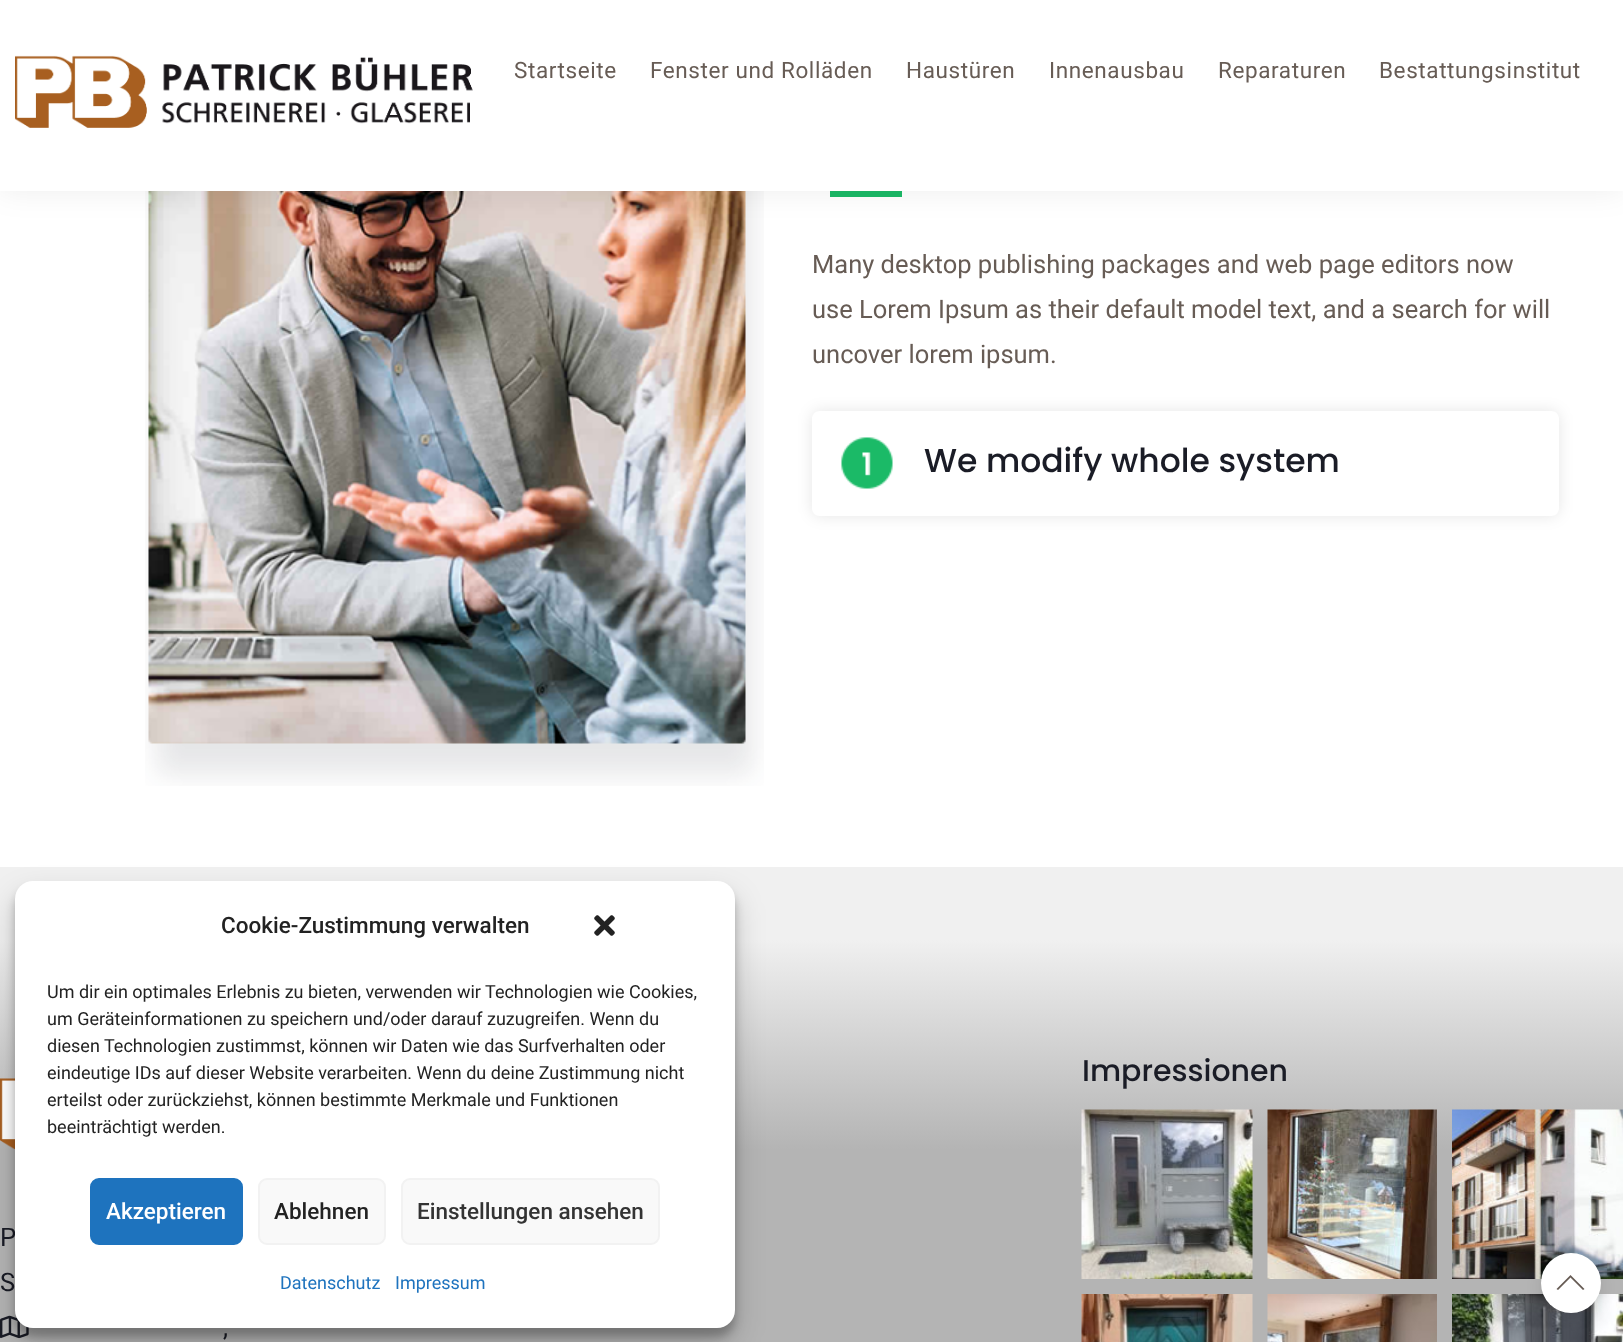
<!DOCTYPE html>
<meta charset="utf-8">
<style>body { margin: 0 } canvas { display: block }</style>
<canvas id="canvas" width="1623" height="1342"></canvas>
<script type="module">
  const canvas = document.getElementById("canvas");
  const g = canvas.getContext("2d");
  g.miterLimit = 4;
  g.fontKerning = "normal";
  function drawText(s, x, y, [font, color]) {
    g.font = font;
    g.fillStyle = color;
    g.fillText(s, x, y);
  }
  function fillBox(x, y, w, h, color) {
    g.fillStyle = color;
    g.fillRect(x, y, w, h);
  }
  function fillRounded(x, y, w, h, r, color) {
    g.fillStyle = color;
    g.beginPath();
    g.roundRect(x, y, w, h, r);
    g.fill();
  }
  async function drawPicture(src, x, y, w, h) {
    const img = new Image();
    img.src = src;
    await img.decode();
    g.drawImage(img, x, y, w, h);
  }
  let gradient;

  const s1 = ["22.5px Roboto", "#675C55"];
  const s2 = ["25.5px Roboto", "#675C55"];
  const s3 = ["500 33px Poppins", "#1A1C26"];
  const s4 = ["500 30px Poppins", "#1A1C26"];
  const s5 = ["25.5px Roboto", "#1A1C26"];
  const s6 = ["500 22.5px Roboto", "#222222"];
  const s7 = ["18px Roboto", "#222222"];
  const s8 = ["500 22.5px Roboto", "#FFFFFF"];
  const s9 = ["500 22.5px Roboto", "#333333"];
  const s10 = ["18px Roboto", "#1E73BE"];

  fillBox(0, 0, 1623, 1342, "#FFFFFF");
  await drawPicture("pic2.png", 145, 191, 619, 595);
  fillBox(830, 191, 72, 6, "#1BBA67");
  g.fillStyle = "rgba(0, 0, 0, 0.07)";
  g.filter = "blur(15px)";
  g.beginPath();
  g.rect(0, 0, 1623, 191);
  g.fill();
  g.filter = "none";
  fillBox(0, 0, 1623, 191, "#FFFFFF");
  await drawPicture("pic1.png", 15, 55, 458, 73);
  g.letterSpacing = "0.6px";
  drawText("Startseite", 514, 78, s1);
  drawText("Fenster und Rolläden", 650, 78, s1);
  drawText("Haustüren", 906, 78, s1);
  drawText("Innenausbau", 1049, 78, s1);
  drawText("Reparaturen", 1218, 78, s1);
  drawText("Bestattungsinstitut", 1379, 78, s1);
  g.letterSpacing = "0px";
  drawText("Many desktop publishing packages and web page editors now", 812, 273, s2);
  drawText("use Lorem Ipsum as their default model text, and a search for will", 812, 318, s2);
  drawText("uncover lorem ipsum.", 812, 363, s2);
  g.save();
  g.beginPath();
  g.moveTo(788, 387);
  g.lineTo(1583, 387);
  g.lineTo(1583, 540);
  g.lineTo(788, 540);
  g.closePath();
  g.moveTo(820, 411);
  g.lineTo(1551, 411);
  g.bezierCurveTo(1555.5, 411, 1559, 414.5, 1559, 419);
  g.lineTo(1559, 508);
  g.bezierCurveTo(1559, 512.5, 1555.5, 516, 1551, 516);
  g.lineTo(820, 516);
  g.bezierCurveTo(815.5, 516, 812, 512.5, 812, 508);
  g.lineTo(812, 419);
  g.bezierCurveTo(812, 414.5, 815.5, 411, 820, 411);
  g.closePath();
  g.clip("evenodd");
  g.fillStyle = "rgba(0, 0, 0, 0.1)";
  g.filter = "blur(7.5px)";
  g.beginPath();
  g.roundRect(812, 411, 747, 105, 8);
  g.fill();
  g.filter = "none";
  g.restore();
  await drawPicture("pic3.png", 841, 437, 52, 52);
  drawText("We modify whole system", 924, 472, s3);
  gradient = g.createLinearGradient(812, 867, 812, 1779);
  gradient.addColorStop(0.08, "#F0F0F0");
  gradient.addColorStop(0.31, "#B4B4B4");
  g.fillStyle = gradient;
  g.fillRect(0, 867, 1623, 475);
  drawText("Impressionen", 1082, 1081, s4);
  await drawPicture("pic4.png", 1081, 1109, 172, 170);
  await drawPicture("pic5.png", 1267, 1109, 170, 170);
  await drawPicture("pic6.png", 1452, 1109, 171, 170);
  await drawPicture("pic7.png", 1081, 1294, 172, 48);
  await drawPicture("pic8.png", 1267, 1294, 170, 48);
  await drawPicture("pic9.png", 1452, 1294, 171, 48);
  await drawPicture("pic10.png", 0, 1078, 15, 72);
  drawText("P", 0, 1246, s5);
  drawText("S", 0, 1291, s5);
  await drawPicture("pic11.png", 0, 1315, 29, 24);
  drawText(",", 223, 1336, s5);
  g.fillStyle = "rgba(0, 0, 0, 0.23)";
  g.filter = "blur(4.5px)";
  g.beginPath();
  g.roundRect(15, 890, 720, 447, 18);
  g.fill();
  g.filter = "none";
  g.fillStyle = "rgba(0, 0, 0, 0.19)";
  g.filter = "blur(15px)";
  g.beginPath();
  g.roundRect(15, 896, 720, 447, 18);
  g.fill();
  g.filter = "none";
  fillRounded(15, 881, 720, 447, 18, "#FFFFFF");
  drawText("Cookie-Zustimmung verwalten", 221, 933, s6);
  await drawPicture("pic12.png", 594, 915, 21, 21);
  drawText("Um dir ein optimales Erlebnis zu bieten, verwenden wir Technologien wie Cookies,", 47, 998, s7);
  drawText("um Geräteinformationen zu speichern und/oder darauf zuzugreifen. Wenn du", 47, 1025, s7);
  drawText("diesen Technologien zustimmst, können wir Daten wie das Surfverhalten oder", 47, 1052, s7);
  drawText("eindeutige IDs auf dieser Website verarbeiten. Wenn du deine Zustimmung nicht", 47, 1079, s7);
  drawText("erteilst oder zurückziehst, können bestimmte Merkmale und Funktionen", 47, 1106, s7);
  drawText("beeinträchtigt werden.", 47, 1133, s7);
  g.fillStyle = "#1E73BE";
  g.beginPath();
  g.roundRect(91, 1179, 151, 65, 8);
  g.fill();
  g.strokeStyle = "#1E73BE";
  g.lineWidth = 2;
  g.stroke();
  drawText("Akzeptieren", 106, 1219, s8);
  g.fillStyle = "#F9F9F9";
  g.beginPath();
  g.roundRect(259, 1179, 126, 65, 8);
  g.fill();
  g.strokeStyle = "#F2F2F2";
  g.stroke();
  drawText("Ablehnen", 274, 1219, s6);
  g.fillStyle = "#F9F9F9";
  g.beginPath();
  g.roundRect(402, 1179, 257, 65, 8);
  g.fill();
  g.stroke();
  drawText("Einstellungen ansehen", 417, 1219, s9);
  drawText("Datenschutz", 280, 1289, s10);
  drawText("Impressum", 395, 1289, s10);
  g.fillStyle = "rgba(0, 0, 0, 0.1)";
  g.filter = "blur(7.5px)";
  g.beginPath();
  g.roundRect(1541, 1257, 60, 60, 30);
  g.fill();
  g.filter = "none";
  g.fillStyle = "#FFFFFF";
  g.beginPath();
  g.arc(1571, 1283, 30, 0, Math.PI * 2);
  g.fill();
  g.fillStyle = "#675C55";
  g.beginPath();
  g.moveTo(1584.5, 1289);
  g.lineTo(1583, 1290);
  g.lineTo(1570.5, 1277.5);
  g.lineTo(1558, 1290);
  g.lineTo(1556.5, 1289);
  g.lineTo(1570.5, 1275);
  g.closePath();
  g.fill();
</script>
